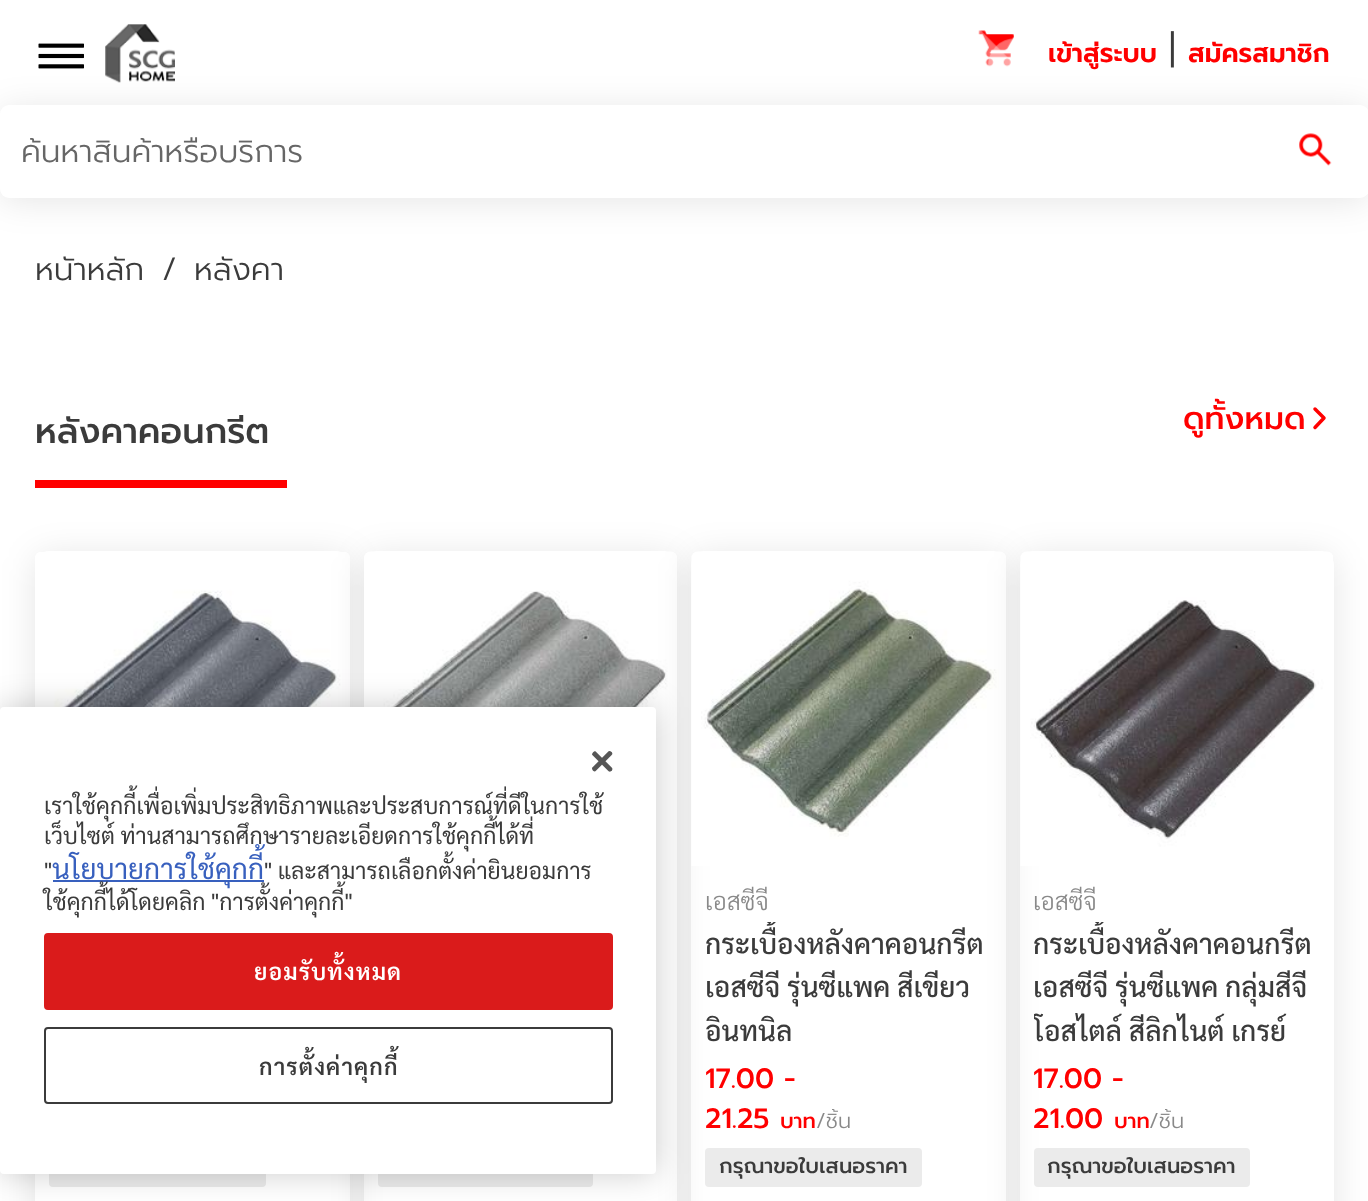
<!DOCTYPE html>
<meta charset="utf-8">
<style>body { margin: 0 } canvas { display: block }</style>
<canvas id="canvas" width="1368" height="1201"></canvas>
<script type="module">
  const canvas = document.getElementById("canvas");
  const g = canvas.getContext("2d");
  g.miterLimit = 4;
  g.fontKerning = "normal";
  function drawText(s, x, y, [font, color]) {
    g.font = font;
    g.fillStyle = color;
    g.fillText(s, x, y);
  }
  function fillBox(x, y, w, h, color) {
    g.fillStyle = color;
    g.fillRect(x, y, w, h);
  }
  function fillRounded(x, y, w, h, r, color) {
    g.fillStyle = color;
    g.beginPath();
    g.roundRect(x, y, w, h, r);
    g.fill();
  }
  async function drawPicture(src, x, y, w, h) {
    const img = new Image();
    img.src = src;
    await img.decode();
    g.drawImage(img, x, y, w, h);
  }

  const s1 = ["600 26.25px Prompt", "#FF0000"];
  const s2 = ["300 38px Prompt", "#3B3B3B"];
  const s3 = ["300 31.5px Prompt", "#666666"];
  const s4 = ["300 31.5px Prompt", "#3B3B3B"];
  const s5 = ["500 35px Prompt", "#3B3B3B"];
  const s6 = ["500 31.5px Prompt", "#FF0000"];
  const s7 = ["300 24.5px Sarabun", "#898989"];
  const s8 = ["500 28px Sarabun", "#3B3B3B"];
  const s9 = ["500 28px Prompt", "#FF0000"];
  const s10 = ["500 21px Prompt", "#FF0000"];
  const s11 = ["300 21px Prompt", "#898989"];
  const s12 = ["500 21px Prompt", "#3B3B3B"];
  const s13 = ["23px Sarabun", "#3B3B3B"];
  const s14 = ["28px Sarabun", "#3860BE"];
  const s15 = ["600 23px Sarabun", "#FFFFFF"];
  const s16 = ["600 23px Sarabun", "#3B3B3B"];

  fillBox(0, 0, 1368, 1201, "#FFFFFF");
  g.save();
  g.beginPath();
  g.rect(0, 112, 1, 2);
  g.clip();
  g.fillStyle = "rgba(0, 0, 0, 0.1)";
  g.filter = "blur(17.5px)";
  g.beginPath();
  g.rect(0, 4, 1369, 112);
  g.fill();
  g.filter = "none";
  g.restore();
  await drawPicture("pic1.png", 105, 24, 70, 59);
  await drawPicture("pic2.png", 38, 43, 46, 26);
  await drawPicture("pic3.png", 978, 30, 36, 37);
  drawText("เข้าสู่ระบบ", 1048, 62, s1);
  drawText("|", 1169, 62, s2);
  drawText("สมัครสมาชิก", 1188, 62, s1);
  g.fillStyle = "rgba(0, 0, 0, 0.1)";
  g.filter = "blur(17.5px)";
  g.beginPath();
  g.roundRect(0, 109, 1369, 92, 9);
  g.fill();
  g.filter = "none";
  fillRounded(0, 105, 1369, 93, 9, "#FFFFFF");
  g.save();
  g.beginPath();
  g.rect(21, 128, 1257, 49);
  g.clip();
  drawText("ค้นหาสินค้าหรือบริการ", 21, 162, s3);
  g.restore();
  await drawPicture("pic4.png", 1299, 133, 33, 33);
  drawText("หนัาหลัก", 35, 280, s4);
  drawText("/", 162, 280, s4);
  drawText("หลังคา", 194, 280, s4);
  drawText("หลังคาคอนกรีต", 35, 443, s5);
  drawText("ดูทั้งหมด", 1183, 429, s6);
  g.beginPath();
  g.moveTo(1315, 409);
  g.lineTo(1324, 418);
  g.lineTo(1315, 427.5);
  g.strokeStyle = "#FF0000";
  g.lineWidth = 3.5;
  g.lineCap = "round";
  g.lineJoin = "round";
  g.stroke();
  fillBox(35, 480, 252, 8, "#FF0000");
  g.save();
  g.beginPath();
  g.moveTo(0, 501);
  g.lineTo(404, 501);
  g.lineTo(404, 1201);
  g.lineTo(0, 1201);
  g.closePath();
  g.moveTo(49, 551);
  g.lineTo(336, 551);
  g.bezierCurveTo(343.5, 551, 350, 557.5, 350, 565);
  g.lineTo(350, 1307);
  g.bezierCurveTo(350, 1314.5, 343.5, 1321, 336, 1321);
  g.lineTo(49, 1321);
  g.bezierCurveTo(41.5, 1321, 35, 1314.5, 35, 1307);
  g.lineTo(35, 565);
  g.bezierCurveTo(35, 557.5, 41.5, 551, 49, 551);
  g.closePath();
  g.clip("evenodd");
  g.fillStyle = "rgba(0, 0, 0, 0.1)";
  g.filter = "blur(17.5px)";
  g.beginPath();
  g.roundRect(35, 555, 315, 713, 14);
  g.fill();
  g.filter = "none";
  g.restore();
  await drawPicture("pic5.png", 35, 552, 315, 155);
  fillRounded(49, 1148, 217, 39, 4, "#EBEBEB");
  g.save();
  g.beginPath();
  g.moveTo(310, 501);
  g.lineTo(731, 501);
  g.lineTo(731, 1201);
  g.lineTo(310, 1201);
  g.closePath();
  g.moveTo(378, 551);
  g.lineTo(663, 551);
  g.bezierCurveTo(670.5, 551, 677, 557.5, 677, 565);
  g.lineTo(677, 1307);
  g.bezierCurveTo(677, 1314.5, 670.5, 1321, 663, 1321);
  g.lineTo(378, 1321);
  g.bezierCurveTo(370.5, 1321, 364, 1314.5, 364, 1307);
  g.lineTo(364, 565);
  g.bezierCurveTo(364, 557.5, 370.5, 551, 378, 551);
  g.closePath();
  g.clip("evenodd");
  g.fillStyle = "rgba(0, 0, 0, 0.1)";
  g.filter = "blur(17.5px)";
  g.beginPath();
  g.roundRect(364, 555, 313, 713, 14);
  g.fill();
  g.filter = "none";
  g.restore();
  await drawPicture("pic6.png", 364, 551, 313, 315);
  fillRounded(378, 1148, 215, 39, 4, "#EBEBEB");
  g.save();
  g.beginPath();
  g.moveTo(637, 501);
  g.lineTo(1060, 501);
  g.lineTo(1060, 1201);
  g.lineTo(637, 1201);
  g.closePath();
  g.moveTo(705, 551);
  g.lineTo(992, 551);
  g.bezierCurveTo(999.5, 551, 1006, 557.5, 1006, 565);
  g.lineTo(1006, 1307);
  g.bezierCurveTo(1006, 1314.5, 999.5, 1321, 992, 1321);
  g.lineTo(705, 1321);
  g.bezierCurveTo(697.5, 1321, 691, 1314.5, 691, 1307);
  g.lineTo(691, 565);
  g.bezierCurveTo(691, 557.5, 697.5, 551, 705, 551);
  g.closePath();
  g.clip("evenodd");
  g.fillStyle = "rgba(0, 0, 0, 0.1)";
  g.filter = "blur(17.5px)";
  g.beginPath();
  g.roundRect(691, 555, 315, 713, 14);
  g.fill();
  g.filter = "none";
  g.restore();
  await drawPicture("pic7.png", 691, 551, 315, 315);
  drawText("เอสซีจี", 705, 910, s7);
  g.save();
  g.beginPath();
  g.rect(705, 922, 287, 132);
  g.clip();
  drawText("กระเบื้องหลังคาคอนกรีต", 705, 954, s8);
  g.restore();
  drawText("เอสซีจี รุ่นซีแพค สีเขียว", 705, 997, s8);
  g.save();
  g.beginPath();
  g.rect(705, 922, 287, 132);
  g.clip();
  drawText("อินทนิล", 705, 1041, s8);
  g.restore();
  drawText("17.00 -", 705, 1088, s9);
  drawText("21.25", 705, 1128, s9);
  drawText("บาท", 780, 1128, s10);
  drawText("/ชิ้น", 816, 1128, s11);
  fillRounded(705, 1148, 217, 39, 4, "#EBEBEB");
  drawText("กรุณาขอใบเสนอราคา", 719, 1173, s12);
  g.save();
  g.beginPath();
  g.moveTo(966, 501);
  g.lineTo(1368, 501);
  g.lineTo(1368, 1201);
  g.lineTo(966, 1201);
  g.closePath();
  g.moveTo(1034, 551);
  g.lineTo(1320, 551);
  g.bezierCurveTo(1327.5, 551, 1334, 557.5, 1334, 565);
  g.lineTo(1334, 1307);
  g.bezierCurveTo(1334, 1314.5, 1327.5, 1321, 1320, 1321);
  g.lineTo(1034, 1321);
  g.bezierCurveTo(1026.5, 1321, 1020, 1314.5, 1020, 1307);
  g.lineTo(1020, 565);
  g.bezierCurveTo(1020, 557.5, 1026.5, 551, 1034, 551);
  g.closePath();
  g.clip("evenodd");
  g.fillStyle = "rgba(0, 0, 0, 0.1)";
  g.filter = "blur(17.5px)";
  g.beginPath();
  g.roundRect(1020, 555, 314, 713, 14);
  g.fill();
  g.filter = "none";
  g.restore();
  await drawPicture("pic8.png", 1020, 551, 313, 315);
  drawText("เอสซีจี", 1033, 910, s7);
  g.save();
  g.beginPath();
  g.rect(1034, 922, 286, 132);
  g.clip();
  drawText("กระเบื้องหลังคาคอนกรีต", 1033, 954, s8);
  g.restore();
  drawText("เอสซีจี รุ่นซีแพค กลุ่มสีจี", 1033, 997, s8);
  g.save();
  g.beginPath();
  g.rect(1034, 922, 286, 132);
  g.clip();
  drawText("โอสไตล์ สีลิกไนต์ เกรย์", 1033, 1041, s8);
  g.restore();
  drawText("17.00 -", 1033, 1088, s9);
  drawText("21.00", 1033, 1128, s9);
  drawText("บาท", 1114, 1128, s10);
  drawText("/ชิ้น", 1149, 1128, s11);
  fillRounded(1034, 1148, 216, 39, 4, "#EBEBEB");
  drawText("กรุณาขอใบเสนอราคา", 1047, 1173, s12);
  g.fillStyle = "rgba(0, 0, 0, 0.2)";
  g.filter = "blur(16px)";
  g.beginPath();
  g.roundRect(0, 707, 656, 467, 4);
  g.fill();
  g.filter = "none";
  fillRounded(0, 707, 656, 467, 4, "#FFFFFF");
  await drawPicture("pic9.png", 592, 751, 21, 21);
  drawText("เราใช้คุกกี้เพื่อเพิ่มประสิทธิภาพและประสบการณ์ที่ดีในการใช้", 44, 814, s13);
  drawText("เว็บไซต์ ท่านสามารถศึกษารายละเอียดการใช้คุกกี้ได้ที่", 44, 844, s13);
  drawText("\"", 44, 879, s13);
  fillBox(53, 880, 211, 2, "#3860BE");
  drawText("นโยบายการใช้คุกกี้", 52, 879, s14);
  drawText("\" และสามารถเลือกตั้งค่ายินยอมการ", 264, 879, s13);
  drawText("ใช้คุกกี้ได้โดยคลิก \"การตั้งค่าคุกกี้\"", 44, 910, s13);
  g.fillStyle = "#DA1B1B";
  g.beginPath();
  g.roundRect(45, 934, 567, 75, 3);
  g.fill();
  g.strokeStyle = "#DA1B1B";
  g.lineWidth = 2;
  g.lineJoin = "miter";
  g.stroke();
  g.letterSpacing = "1.1px";
  drawText("ยอมรับทั้งหมด", 254, 980, s15);
  g.beginPath();
  g.roundRect(45, 1028, 567, 75, 3);
  g.strokeStyle = "#3B3B3B";
  g.stroke();
  drawText("การตั้งค่าคุกกี้", 259, 1075, s16);
</script>
